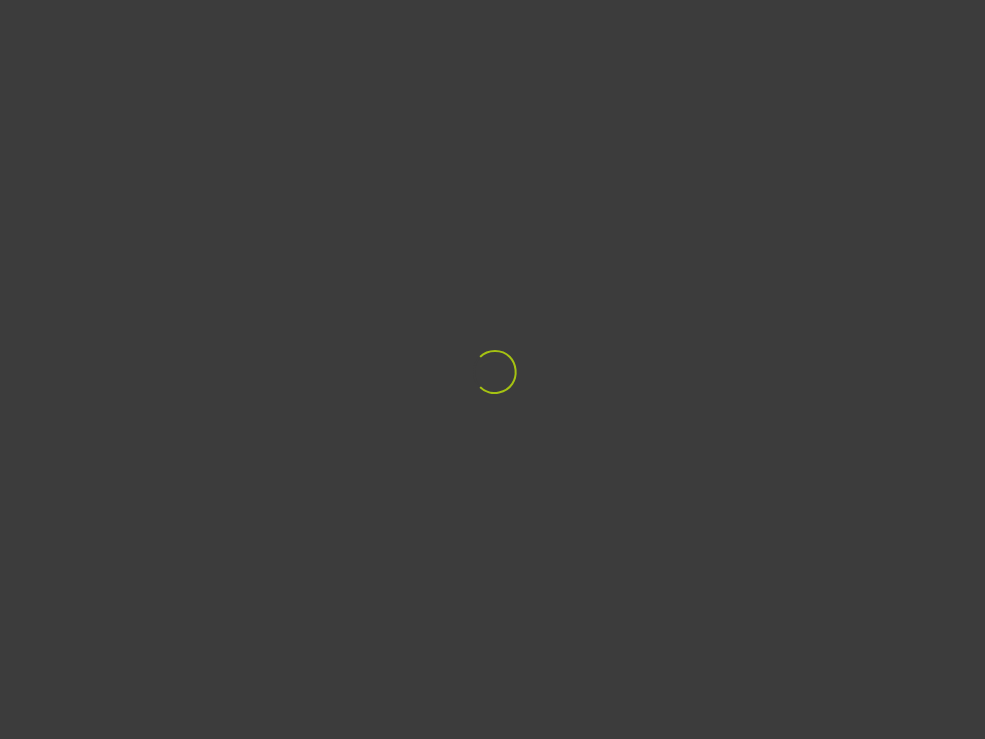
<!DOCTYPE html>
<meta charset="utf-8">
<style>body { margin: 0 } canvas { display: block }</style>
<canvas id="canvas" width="985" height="739"></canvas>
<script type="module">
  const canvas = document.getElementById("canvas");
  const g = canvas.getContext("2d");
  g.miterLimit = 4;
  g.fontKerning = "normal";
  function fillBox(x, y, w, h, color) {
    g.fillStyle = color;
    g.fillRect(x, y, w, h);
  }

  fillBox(0, 0, 985, 739, "#3C3C3C");
  g.beginPath();
  g.moveTo(480, 357);
  g.bezierCurveTo(484, 353, 489.5, 351, 495, 351);
  g.bezierCurveTo(520, 351, 523.5, 387.5, 499, 392.5);
  g.bezierCurveTo(492.5, 394, 485, 392, 480, 387);
  g.strokeStyle = "#A5C212";
  g.lineWidth = 2;
  g.stroke();
  g.beginPath();
  g.moveTo(480, 387);
  g.bezierCurveTo(472, 379, 472, 365, 480, 357);
  g.strokeStyle = "#3C3C3C";
  g.stroke();
</script>
